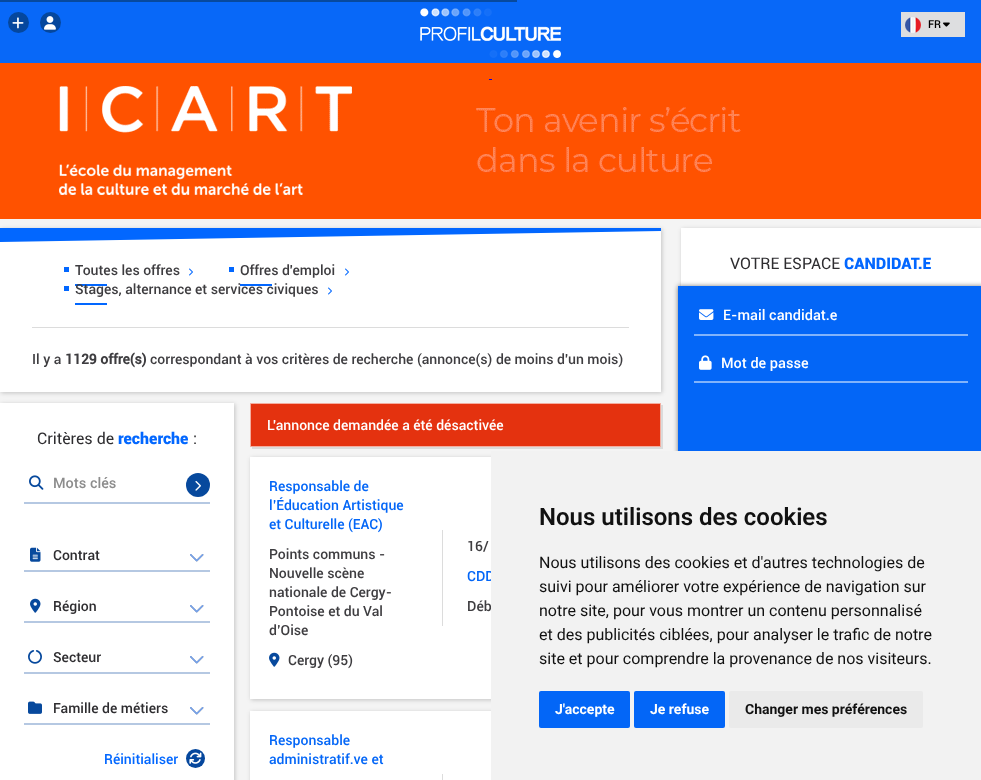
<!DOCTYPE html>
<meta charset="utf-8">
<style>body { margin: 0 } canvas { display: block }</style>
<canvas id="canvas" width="981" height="780"></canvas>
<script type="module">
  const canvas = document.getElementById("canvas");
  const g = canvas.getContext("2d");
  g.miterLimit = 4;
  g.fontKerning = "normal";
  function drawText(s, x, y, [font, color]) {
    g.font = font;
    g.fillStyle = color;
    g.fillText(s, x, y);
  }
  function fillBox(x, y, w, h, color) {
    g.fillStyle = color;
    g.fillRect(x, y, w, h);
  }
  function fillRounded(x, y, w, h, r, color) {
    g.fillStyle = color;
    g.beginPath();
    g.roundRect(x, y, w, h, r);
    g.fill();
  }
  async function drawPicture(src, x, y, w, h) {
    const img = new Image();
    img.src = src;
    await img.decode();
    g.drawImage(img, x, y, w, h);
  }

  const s1 = ["500 11px Roboto", "#000000"];
  const s2 = ["500 14px Roboto", "#3E3D40"];
  const s3 = ["bold 14px Roboto", "#3E3D40"];
  const s4 = ["16px Roboto", "#2E2D30"];
  const s5 = ["900 16px Roboto", "#0267FF"];
  const s6 = ["500 14.5px Roboto", "#8C8C8C"];
  const s7 = ["500 14px Roboto", "#2E2D30"];
  const s8 = ["500 14px Roboto", "#0267FF"];
  const s9 = ["500 14px Roboto", "#FFFFFF"];
  const s10 = ["500 14px Roboto", "#0366F7"];
  const s11 = ["500 14.5px Roboto", "#FFFFFF"];
  const s12 = ["600 24px Roboto", "#111111"];
  const s13 = ["16px 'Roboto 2'", "#111111"];
  const s14 = ["bold 14px 'Roboto 2'", "#FFFFFF"];
  const s15 = ["bold 14px 'Roboto 2'", "#111111"];

  fillBox(0, 0, 981, 780, "#F4F4F4");
  fillBox(0, 0, 981, 63, "#0868F8");
  await drawPicture("pic1.png", 420, 8, 141, 50);
  fillBox(0, 0, 517, 2, "#07499D");
  g.fillStyle = "#05479D";
  g.beginPath();
  g.arc(18.5, 22.5, 10.5, 0, Math.PI * 2);
  g.fill();
  await drawPicture("pic2.png", 12, 17, 12, 12);
  g.beginPath();
  g.arc(50.5, 22.5, 10.5, 0, Math.PI * 2);
  g.fill();
  await drawPicture("pic3.png", 44, 16, 12, 14);
  fillBox(901, 12, 64, 25, "#DDDEE0");
  await drawPicture("pic4.png", 905, 17, 16, 16);
  drawText("FR", 928, 28, s1);
  await drawPicture("pic5.png", 943, 22, 7, 5);
  await drawPicture("pic6.png", 0, 63, 981, 156);
  fillBox(489, 79, 3, 1, "#0000EE");
  g.fillStyle = "rgba(0, 0, 0, 0.2)";
  g.filter = "blur(2px)";
  g.beginPath();
  g.rect(1, 229, 661, 164);
  g.fill();
  g.filter = "none";
  fillBox(0, 231, 661, 161, "#FFFFFF");
  g.save();
  g.beginPath();
  g.rect(0, 228, 661, 164);
  g.clip();
  g.fillStyle = "#0267FF";
  g.beginPath();
  g.moveTo(0, 218);
  g.lineTo(661, 207);
  g.lineTo(661, 231);
  g.lineTo(0, 242);
  g.closePath();
  g.fill();
  g.restore();
  fillBox(32, 327, 597, 1, "#DCDCDC");
  fillBox(64, 267, 5, 5, "#0267FF");
  drawText("Toutes les offres", 75, 275, s2);
  await drawPicture("pic7.png", 189, 268, 4, 8);
  fillBox(75, 284, 32, 2, "#0267FF");
  fillBox(229, 267, 5, 5, "#0267FF");
  drawText("Offres d'emploi", 240, 275, s2);
  await drawPicture("pic7.png", 345, 268, 4, 8);
  fillBox(240, 284, 32, 2, "#0267FF");
  fillBox(64, 286, 5, 5, "#0267FF");
  drawText("Stages, alternance et services civiques", 75, 294, s2);
  await drawPicture("pic7.png", 328, 287, 4, 8);
  fillBox(75, 303, 32, 2, "#0267FF");
  drawText("Il y a", 32, 364, s2);
  drawText("1129 offre(s)", 65, 364, s3);
  drawText("correspondant à vos critères de recherche (annonce(s) de moins d'un mois)", 150, 364, s2);
  g.fillStyle = "rgba(0, 0, 0, 0.2)";
  g.filter = "blur(2px)";
  g.beginPath();
  g.rect(1, 404, 234, 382);
  g.fill();
  g.filter = "none";
  fillBox(0, 403, 234, 377, "#FFFFFF");
  drawText("Critères de", 37, 444, s4);
  drawText("recherche", 118, 444, s5);
  drawText(":", 193, 444, s4);
  await drawPicture("pic8.png", 29, 475, 15, 15);
  drawText("Mots clés", 53, 488, s6);
  g.fillStyle = "#07499D";
  g.beginPath();
  g.arc(198, 485, 12, 0, Math.PI * 2);
  g.fill();
  await drawPicture("pic9.png", 195, 481, 6, 10);
  fillBox(24, 502, 186, 2, "#B5C8E2");
  await drawPicture("pic10.png", 190, 554, 14, 8);
  await drawPicture("pic11.png", 30, 547, 11, 15);
  drawText("Contrat", 53, 560, s7);
  fillBox(24, 570, 186, 2, "#B5C8E2");
  await drawPicture("pic10.png", 190, 605, 14, 8);
  await drawPicture("pic12.png", 30, 598, 11, 15);
  drawText("Région", 53, 611, s7);
  fillBox(24, 621, 186, 2, "#B5C8E2");
  await drawPicture("pic10.png", 190, 656, 14, 8);
  await drawPicture("pic13.png", 28, 650, 14, 14);
  drawText("Secteur", 53, 662, s7);
  fillBox(24, 672, 186, 2, "#B5C8E2");
  await drawPicture("pic10.png", 190, 707, 14, 8);
  await drawPicture("pic14.png", 28, 701, 14, 13);
  drawText("Famille de métiers", 53, 713, s7);
  fillBox(24, 723, 186, 2, "#B5C8E2");
  drawText("Réinitialiser", 104, 764, s8);
  g.fillStyle = "#05479D";
  g.beginPath();
  g.arc(195.5, 758.5, 9.5, 0, Math.PI * 2);
  g.fill();
  await drawPicture("pic15.png", 189, 752, 13, 12);
  g.fillStyle = "rgba(0, 0, 0, 0.1)";
  g.filter = "blur(0.5px)";
  g.beginPath();
  g.rect(252, 405, 411, 44);
  g.fill();
  g.filter = "none";
  g.fillStyle = "#E4320F";
  g.beginPath();
  g.rect(250.5, 403.5, 410, 43);
  g.fill();
  g.strokeStyle = "#F4AD9F";
  g.stroke();
  drawText("L'annonce demandée a été désactivée", 267, 430, s9);
  g.fillStyle = "rgba(0, 0, 0, 0.2)";
  g.filter = "blur(2px)";
  g.beginPath();
  g.rect(251, 458, 411, 242);
  g.fill();
  g.filter = "none";
  fillBox(250, 457, 241, 242, "#FFFFFF");
  drawText("Responsable de", 269, 491, s10);
  drawText("l’Éducation Artistique", 269, 510, s10);
  drawText("et Culturelle (EAC)", 269, 529, s10);
  drawText("Points communs -", 269, 559, s2);
  drawText("Nouvelle scène", 269, 578, s2);
  drawText("nationale de Cergy-", 269, 597, s2);
  drawText("Pontoise et du Val", 269, 616, s2);
  drawText("d’Oise", 269, 635, s2);
  await drawPicture("pic12.png", 269, 652, 11, 15);
  drawText("Cergy (95)", 288, 665, s2);
  fillBox(442, 530, 1, 96, "#DCDCDC");
  drawText("16/", 467, 551, s2);
  drawText("CDD", 467, 581, s10);
  drawText("Déb", 467, 611, s2);
  g.fillStyle = "rgba(0, 0, 0, 0.2)";
  g.filter = "blur(2px)";
  g.beginPath();
  g.rect(251, 712, 411, 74);
  g.fill();
  g.filter = "none";
  fillBox(250, 711, 241, 69, "#FFFFFF");
  drawText("Responsable", 269, 745, s10);
  drawText("administratif.ve et", 269, 764, s10);
  fillBox(442, 774, 1, 6, "#DCDCDC");
  g.fillStyle = "rgba(0, 0, 0, 0.2)";
  g.filter = "blur(2px)";
  g.beginPath();
  g.rect(682, 229, 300, 458);
  g.fill();
  g.filter = "none";
  fillBox(681, 228, 300, 58, "#FFFFFF");
  drawText("VOTRE ESPACE", 730, 269, s4);
  drawText("CANDIDAT.E", 844, 269, s5);
  g.fillStyle = "rgba(0, 0, 0, 0.5)";
  g.filter = "blur(2.5px)";
  g.beginPath();
  g.rect(678, 286, 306, 315);
  g.fill();
  g.filter = "none";
  fillBox(678, 286, 303, 165, "#0366F7");
  await drawPicture("pic16.png", 699, 309, 15, 11);
  drawText("E-mail candidat.e", 723, 320, s11);
  fillBox(694, 334, 274, 2, "#81B3FB");
  await drawPicture("pic17.png", 699, 355, 13, 15);
  drawText("Mot de passe", 721, 368, s11);
  fillBox(694, 381, 274, 2, "#81B3FB");
  fillBox(491, 451, 490, 329, "#F2F2F2");
  drawText("Nous utilisons des cookies", 539, 525, s12);
  drawText("Nous utilisons des cookies et d'autres technologies de", 539, 568, s13);
  drawText("suivi pour améliorer votre expérience de navigation sur", 539, 592, s13);
  drawText("notre site, pour vous montrer un contenu personnalisé", 539, 616, s13);
  drawText("et des publicités ciblées, pour analyser le trafic de notre", 539, 640, s13);
  drawText("site et pour comprendre la provenance de nos visiteurs.", 539, 664, s13);
  fillRounded(539, 691, 91, 37, 2, "#0366F7");
  drawText("J'accepte", 555, 714, s14);
  fillRounded(634, 691, 91, 37, 2, "#0366F7");
  drawText("Je refuse", 650, 714, s14);
  fillRounded(729, 691, 194, 37, 2, "#EAEAEA");
  drawText("Changer mes préférences", 745, 714, s15);
</script>
